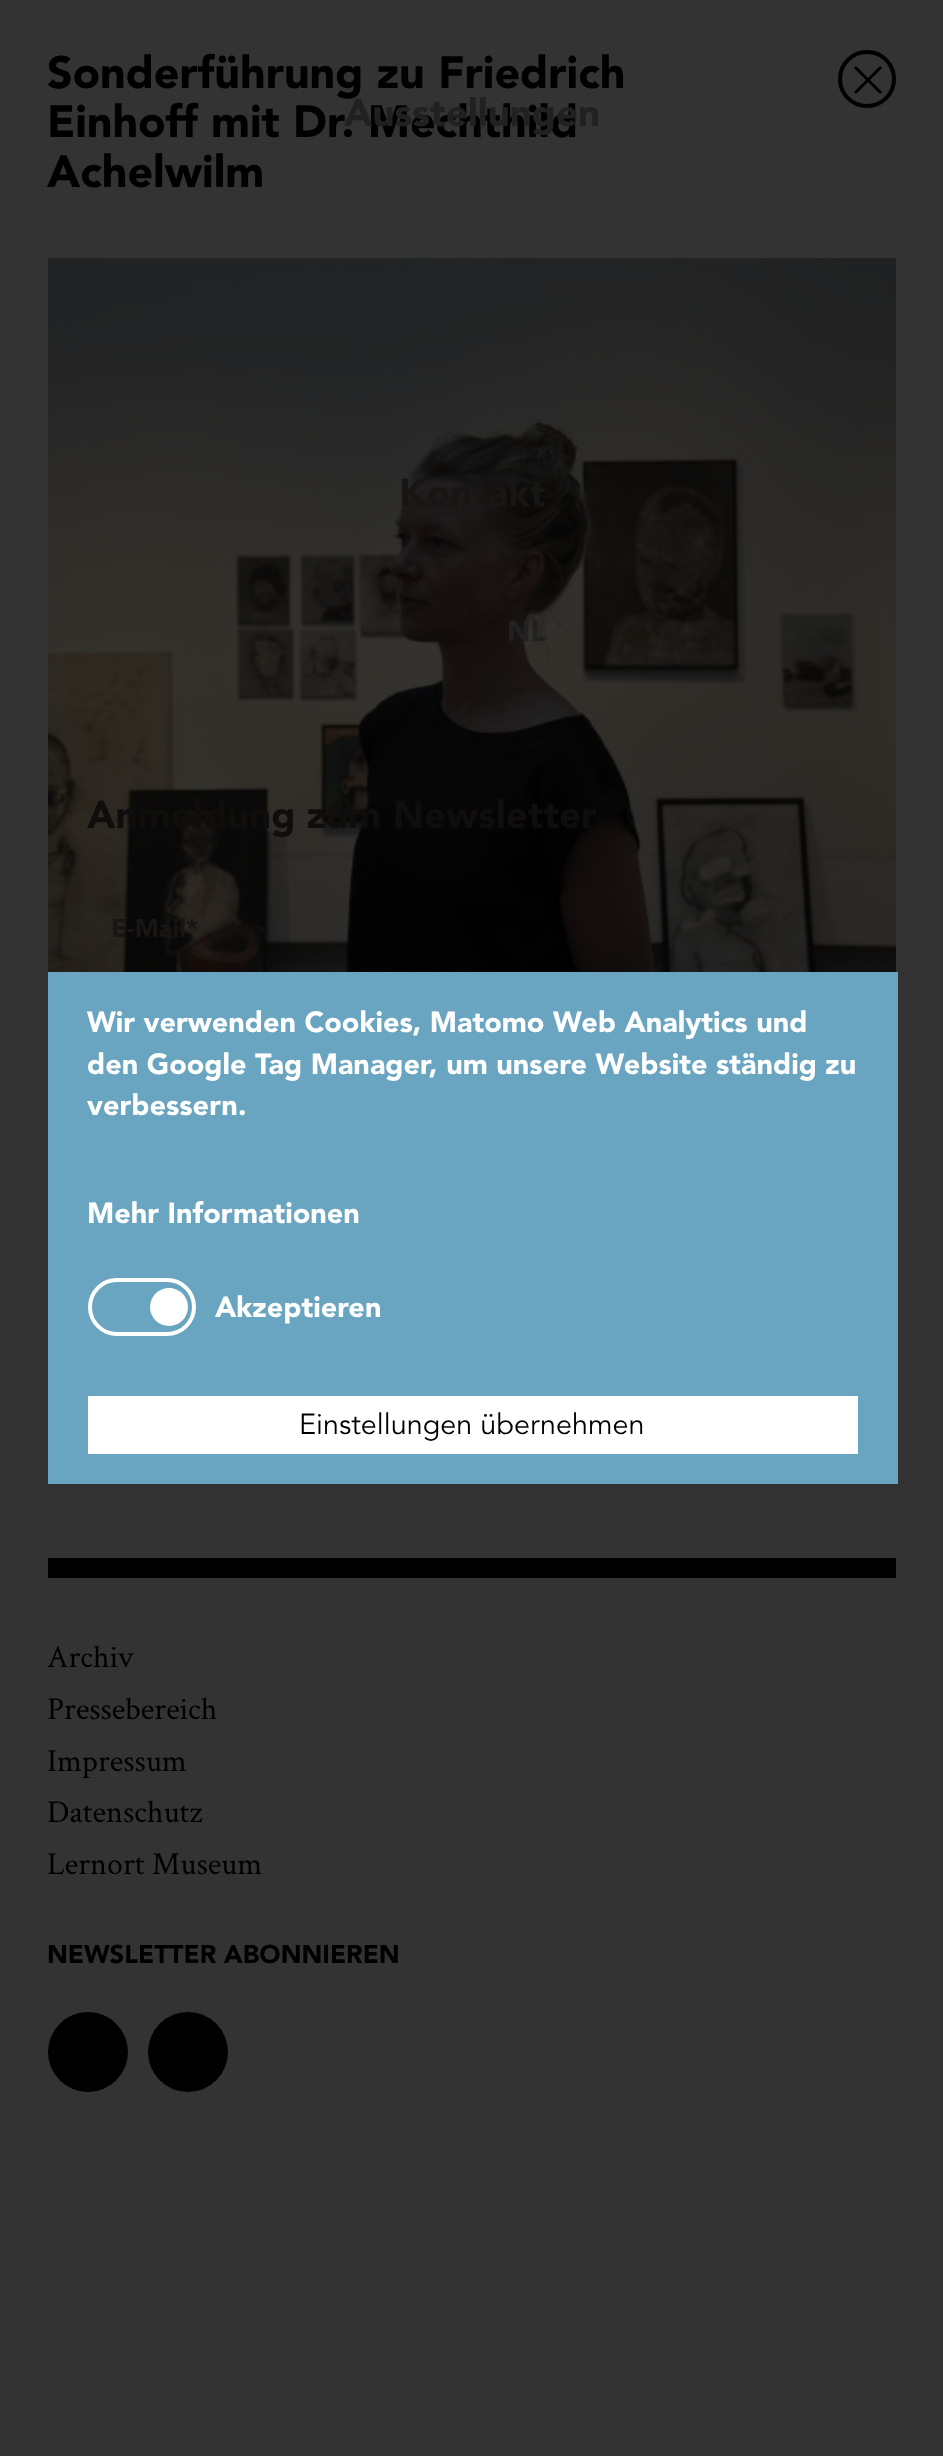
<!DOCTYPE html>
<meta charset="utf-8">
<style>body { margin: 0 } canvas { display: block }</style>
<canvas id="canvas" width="943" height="2456"></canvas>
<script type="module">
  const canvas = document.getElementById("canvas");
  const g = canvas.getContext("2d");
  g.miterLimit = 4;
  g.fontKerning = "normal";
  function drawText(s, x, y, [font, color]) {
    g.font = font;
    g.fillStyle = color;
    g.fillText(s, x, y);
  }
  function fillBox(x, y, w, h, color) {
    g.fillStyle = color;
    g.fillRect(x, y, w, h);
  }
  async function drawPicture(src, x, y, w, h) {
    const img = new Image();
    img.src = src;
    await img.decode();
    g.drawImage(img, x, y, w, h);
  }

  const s1 = ["900 44.75px Avenir", "#000000"];
  const s2 = ["32px Crimson Text", "#000000"];
  const s3 = ["900 25.6px Avenir", "#000000"];
  const s4 = ["900 38.4px Avenir", "#212121"];
  const s5 = ["900 38.4px Avenir", "#181615"];
  const s6 = ["900 28.8px Avenir", "#212121"];
  const s7 = ["900 38.4px Avenir", "#0F0E0D"];
  const s8 = ["900 25.6px Avenir", "#181615"];
  const s9 = ["900 28.8px Avenir", "#FFFFFF"];
  const s10 = ["28.8px Avenir", "#000000"];

  fillBox(0, 0, 943, 2456, "#333333");
  drawText("Sonderführung zu Friedrich", 47, 88, s1);
  drawText("Einhoff mit Dr. Mechthild", 47, 137, s1);
  drawText("Achelwilm", 47, 187, s1);
  g.beginPath();
  g.arc(867, 79, 27, 0, Math.PI * 2);
  g.strokeStyle = "#000000";
  g.lineWidth = 4;
  g.stroke();
  g.beginPath();
  g.moveTo(855, 67);
  g.lineTo(881, 93);
  g.moveTo(881, 67);
  g.lineTo(855, 93);
  g.lineWidth = 3;
  g.stroke();
  await drawPicture("pic1.png", 48, 258, 848, 714);
  fillBox(48, 1558, 848, 20, "#000000");
  drawText("Archiv", 47, 1667, s2);
  drawText("Pressebereich", 47, 1719, s2);
  drawText("Impressum", 47, 1771, s2);
  drawText("Datenschutz", 47, 1822, s2);
  drawText("Lernort Museum", 47, 1874, s2);
  drawText("NEWSLETTER ABONNIEREN", 47, 1963, s3);
  g.beginPath();
  g.arc(88, 2052, 40, 0, Math.PI * 2);
  g.fill();
  g.beginPath();
  g.arc(188, 2052, 40, 0, Math.PI * 2);
  g.fill();
  drawText("Ausstellungen", 344, 126, s4);
  drawText("Kontakt", 399, 506, s5);
  drawText("NL", 507, 641, s6);
  drawText("Anmeldung zum Newsletter", 87, 828, s7);
  drawText("E-Mail*", 111, 937, s8);
  fillBox(48, 972, 850, 512, "#69A5C1");
  drawText("Wir verwenden Cookies, Matomo Web Analytics und", 87, 1032, s9);
  drawText("den Google Tag Manager, um unsere Website ständig zu", 87, 1074, s9);
  drawText("verbessern.", 87, 1115, s9);
  drawText("Mehr Informationen", 87, 1223, s9);
  g.beginPath();
  g.roundRect(90, 1280, 104, 54, 27);
  g.strokeStyle = "#FFFFFF";
  g.lineWidth = 4;
  g.stroke();
  g.beginPath();
  g.arc(169, 1307, 19, 0, Math.PI * 2);
  g.fill();
  drawText("Akzeptieren", 215, 1317, s9);
  fillBox(88, 1396, 770, 58, "#FFFFFF");
  drawText("Einstellungen übernehmen", 299, 1434, s10);
</script>
